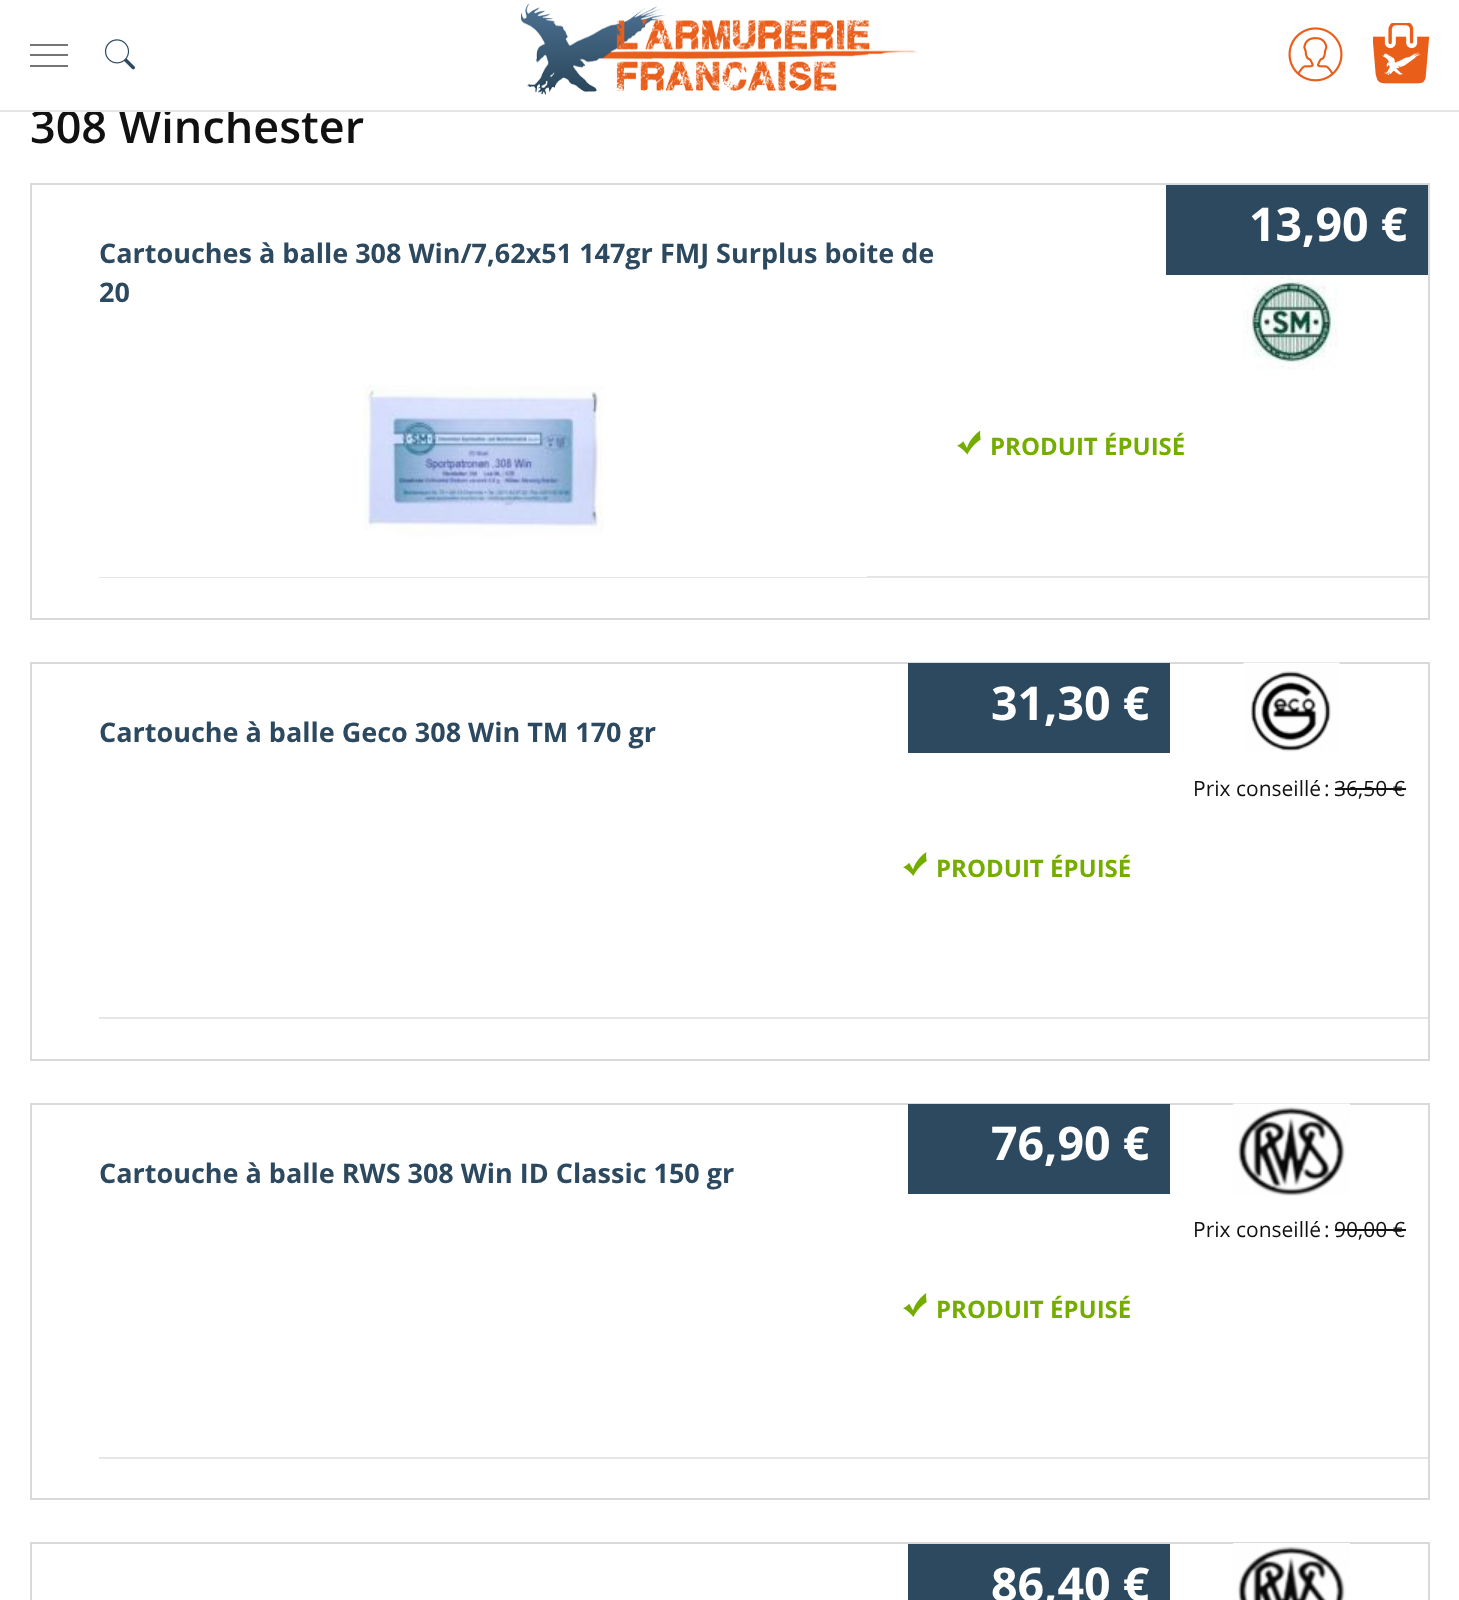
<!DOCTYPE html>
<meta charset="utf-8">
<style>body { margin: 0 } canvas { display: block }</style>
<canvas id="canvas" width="1459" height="1600"></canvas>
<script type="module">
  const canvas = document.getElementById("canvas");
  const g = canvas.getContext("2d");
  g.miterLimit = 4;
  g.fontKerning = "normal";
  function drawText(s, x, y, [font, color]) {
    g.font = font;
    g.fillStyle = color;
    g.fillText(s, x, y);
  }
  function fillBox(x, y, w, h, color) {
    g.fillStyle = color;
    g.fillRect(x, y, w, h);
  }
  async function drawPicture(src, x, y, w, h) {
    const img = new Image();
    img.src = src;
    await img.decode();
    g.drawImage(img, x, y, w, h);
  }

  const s1 = ["600 45px Open Sans", "#111111"];
  const s2 = ["bold 27px Open Sans", "#2C495F"];
  const s3 = ["bold 46.5px Open Sans", "#FFFFFF"];
  const s4 = ["bold 24px Open Sans", "#74AD00"];
  const s5 = ["21px Open Sans", "#111111"];

  fillBox(0, 0, 1459, 1600, "#FFFFFF");
  drawText("308 Winchester", 30, 143, s1);
  fillBox(165, 108, 69, 2, "#FFFFFF");
  fillBox(0, 110, 1459, 2, "#E6E6E6");
  fillBox(30, 44, 38, 2, "#757575");
  fillBox(30, 54, 38, 2, "#757575");
  fillBox(30, 65, 38, 2, "#757575");
  await drawPicture("pic1.png", 104, 39, 31, 31);
  await drawPicture("pic2.png", 521, 3, 397, 92);
  await drawPicture("pic3.png", 1288, 27, 55, 55);
  await drawPicture("pic4.png", 1373, 23, 57, 61);
  g.strokeStyle = "#D8D9D8";
  g.lineWidth = 2;
  g.strokeRect(31, 184, 1398, 435);
  fillBox(99, 576, 1329, 2, "#E6E6E6");
  drawText("Cartouches à balle 308 Win/7,62x51 147gr FMJ Surplus boite de", 99, 263, s2);
  drawText("20", 99, 302, s2);
  await drawPicture("pic5.png", 99, 385, 768, 192);
  fillBox(1166, 185, 262, 90, "#2C495F");
  drawText("13,90 €", 1249, 241, s3);
  await drawPicture("pic6.png", 1242, 275, 96, 95);
  await drawPicture("pic7.png", 957, 430, 24, 25);
  drawText("PRODUIT ÉPUISÉ", 990, 455, s4);
  g.strokeRect(31, 663, 1398, 397);
  fillBox(99, 1017, 1329, 2, "#E6E6E6");
  drawText("Cartouche à balle Geco 308 Win TM 170 gr", 99, 742, s2);
  fillBox(908, 663, 262, 90, "#2C495F");
  drawText("31,30 €", 991, 720, s3);
  await drawPicture("pic8.png", 1243, 662, 97, 90);
  drawText("Prix conseillé", 1193, 796, s5);
  drawText(":", 1324, 796, s5);
  drawText("36,50 €", 1334, 796, s5);
  fillBox(1335, 788, 71, 2, "#111111");
  await drawPicture("pic9.png", 903, 852, 24, 24);
  drawText("PRODUIT ÉPUISÉ", 936, 877, s4);
  g.strokeRect(31, 1104, 1398, 395);
  fillBox(99, 1457, 1329, 2, "#E6E6E6");
  drawText("Cartouche à balle RWS 308 Win ID Classic 150 gr", 99, 1183, s2);
  fillBox(908, 1104, 262, 90, "#2C495F");
  drawText("76,90 €", 991, 1160, s3);
  await drawPicture("pic10.png", 1232, 1103, 119, 93);
  drawText("Prix conseillé", 1193, 1237, s5);
  drawText(":", 1324, 1237, s5);
  drawText("90,00 €", 1334, 1237, s5);
  fillBox(1335, 1229, 71, 2, "#111111");
  await drawPicture("pic9.png", 903, 1293, 24, 24);
  drawText("PRODUIT ÉPUISÉ", 936, 1318, s4);
  g.strokeRect(31, 1543, 1398, 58);
  fillBox(908, 1544, 262, 56, "#2C495F");
  drawText("86,40 €", 991, 1601, s3);
  await drawPicture("pic11.png", 1232, 1543, 119, 57);
</script>
